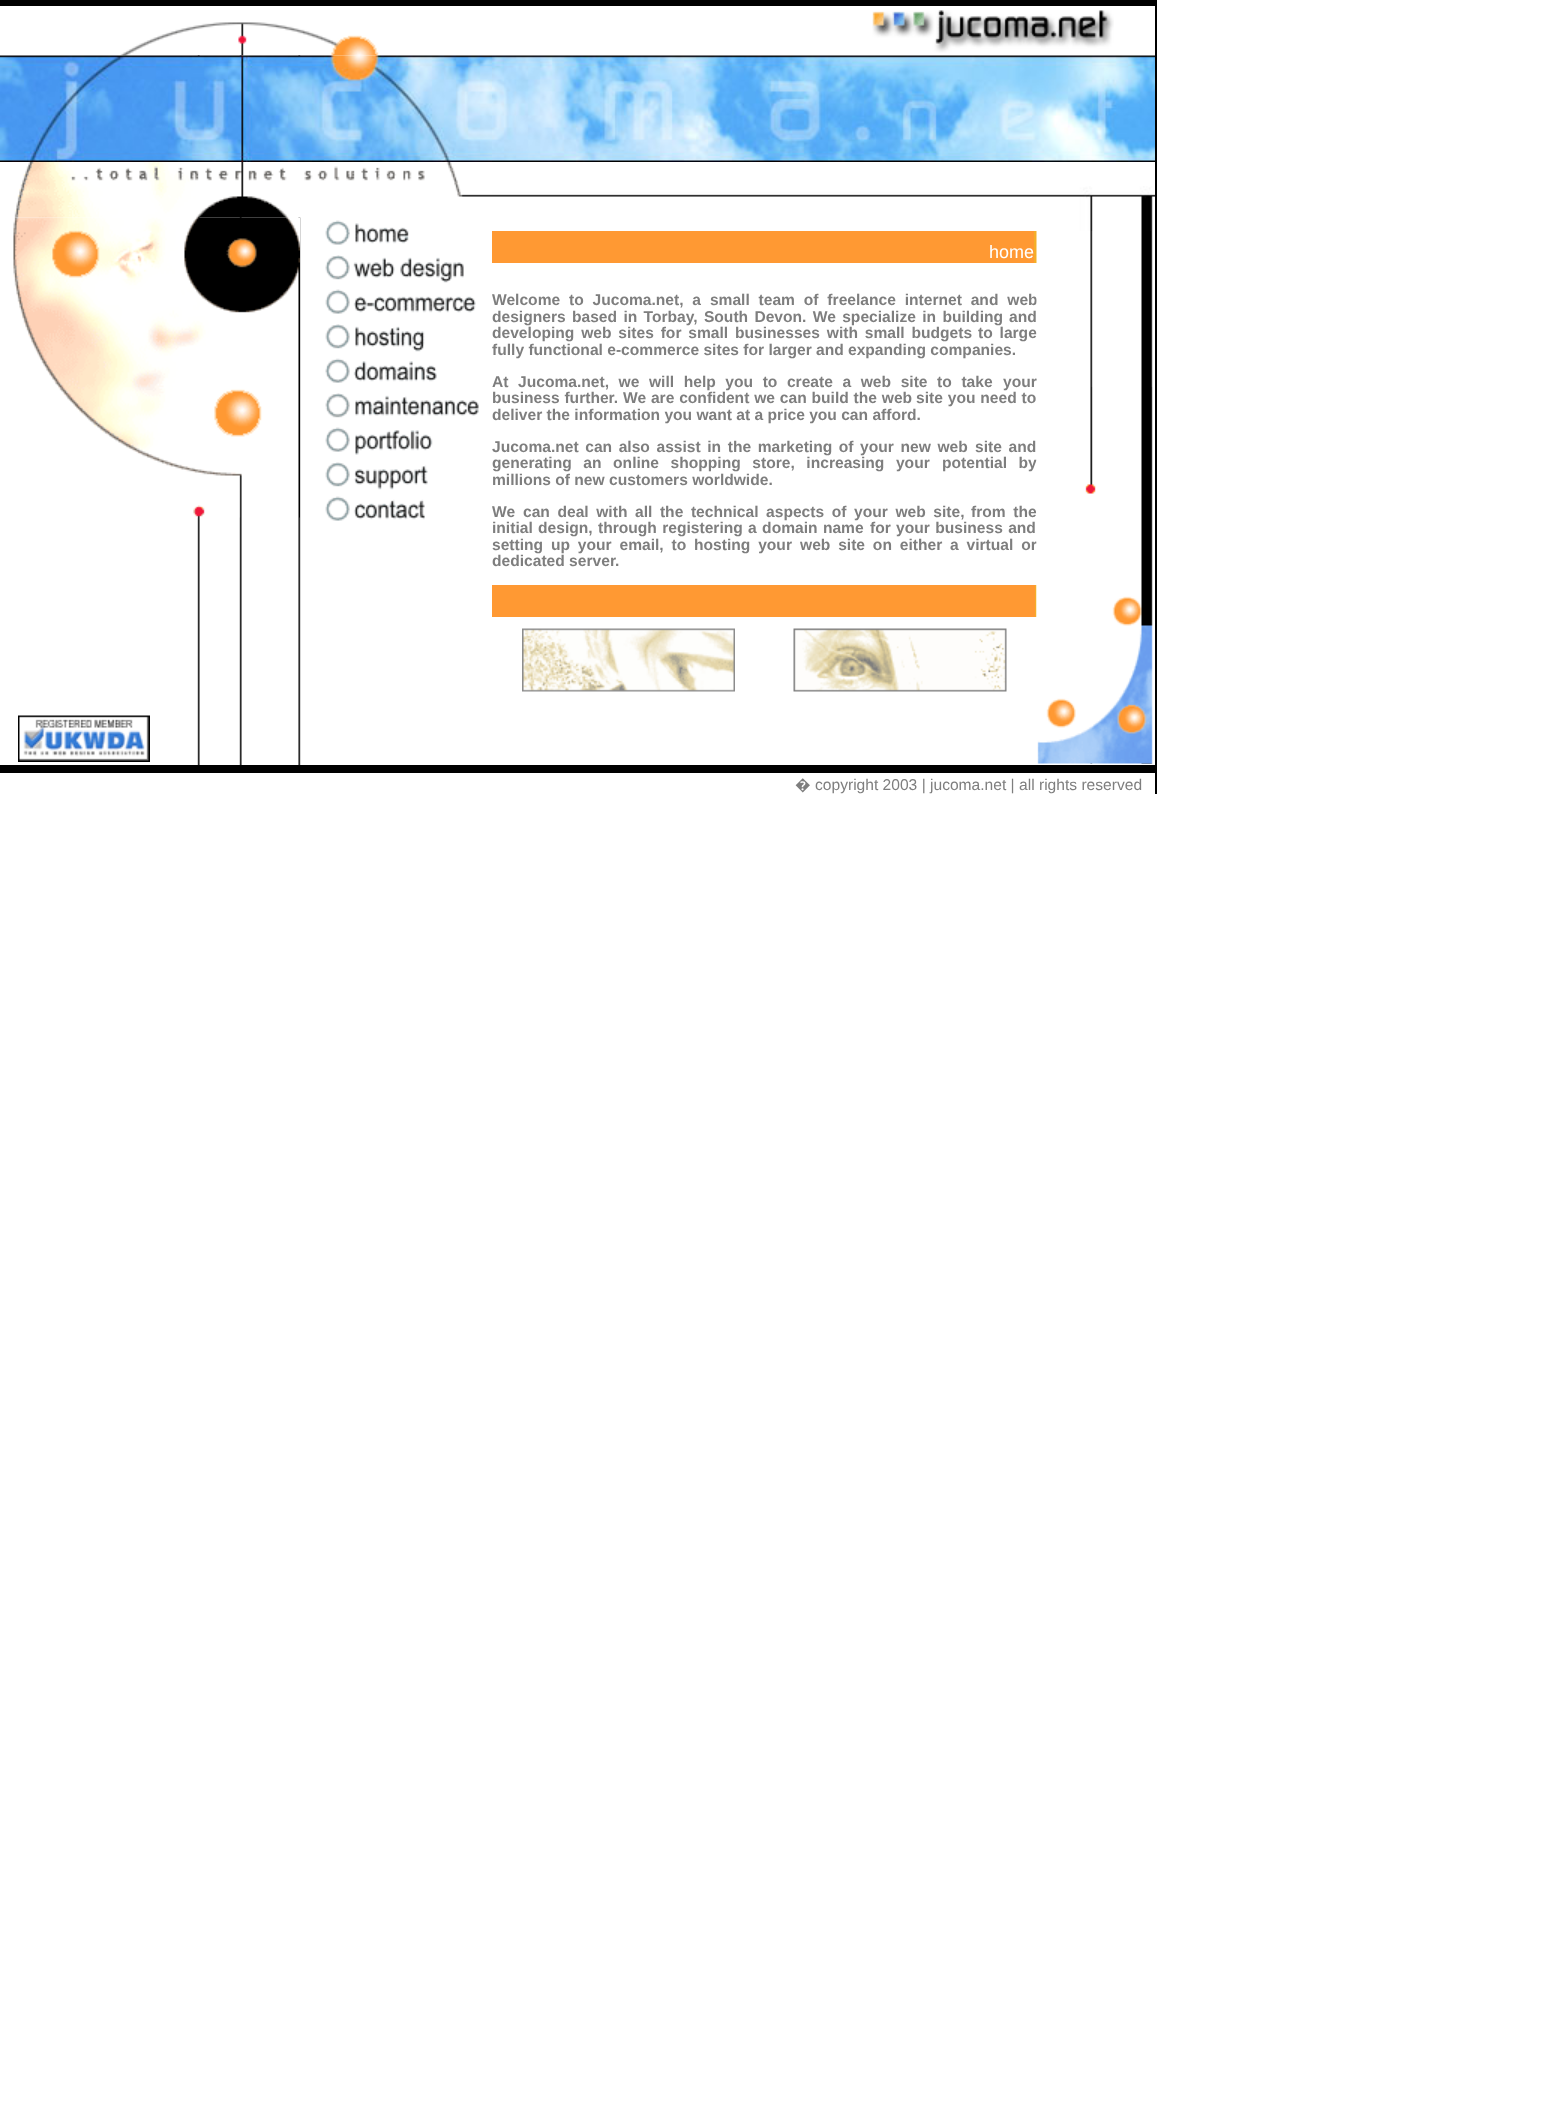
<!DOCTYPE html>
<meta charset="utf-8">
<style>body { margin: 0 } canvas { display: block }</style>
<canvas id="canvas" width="1542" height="2107"></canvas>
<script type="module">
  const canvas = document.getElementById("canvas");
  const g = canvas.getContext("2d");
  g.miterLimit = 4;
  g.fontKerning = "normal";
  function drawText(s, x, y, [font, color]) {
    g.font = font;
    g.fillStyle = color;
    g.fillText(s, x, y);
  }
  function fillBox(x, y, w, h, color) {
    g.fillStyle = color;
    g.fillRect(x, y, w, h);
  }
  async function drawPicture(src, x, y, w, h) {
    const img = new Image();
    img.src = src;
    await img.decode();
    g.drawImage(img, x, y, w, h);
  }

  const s1 = ["18px Liberation Sans", "#FFFFFF"];
  const s2 = ["bold 15.6px Liberation Sans", "#7E7E7E"];
  const s3 = ["15.6px Noto Sans", "#7E7E7E"];
  const s4 = ["15.6px Liberation Sans", "#7E7E7E"];

  fillBox(0, 0, 1542, 2107, "#FFFFFF");
  fillBox(0, 0, 1155, 6, "#000000");
  fillBox(1155, 0, 2, 794, "#000000");
  await drawPicture("pic1.png", 197, 55, 104, 650);
  await drawPicture("pic2.png", 120, 6, 259, 50);
  await drawPicture("pic3.png", 0, 55, 492, 107);
  await drawPicture("pic4.png", 14, 162, 478, 56);
  await drawPicture("pic5.png", 13, 217, 287, 301);
  await drawPicture("pic6.png", 325, 220, 84, 25);
  await drawPicture("pic7.png", 325, 255, 139, 28);
  await drawPicture("pic8.png", 325, 289, 151, 25);
  await drawPicture("pic9.png", 325, 324, 100, 28);
  await drawPicture("pic10.png", 325, 358, 112, 25);
  await drawPicture("pic11.png", 325, 393, 154, 25);
  await drawPicture("pic12.png", 325, 427, 108, 28);
  await drawPicture("pic13.png", 325, 462, 103, 28);
  await drawPicture("pic14.png", 325, 496, 100, 25);
  await drawPicture("pic15.png", 872, 10, 242, 43);
  await drawPicture("pic16.png", 492, 55, 663, 107);
  await drawPicture("pic17.png", 492, 186, 663, 45);
  fillBox(492, 231, 542, 32, "#FF9933");
  drawText("home", 989, 258, s1);
  fillBox(1034, 231, 3, 32, "#F5AE28");
  drawText("Welcome", 492, 305, s2);
  g.wordSpacing = "4.5px";
  drawText("to Jucoma.net, a small team of freelance internet and web", 569, 305, s2);
  g.wordSpacing = "2px";
  drawText("designers based in Torbay, South Devon. We specialize in building", 492, 322, s2);
  g.wordSpacing = "0px";
  drawText("and", 1009, 322, s2);
  g.wordSpacing = "2.5px";
  drawText("developing web sites for small businesses with small budgets", 492, 338, s2);
  drawText("to large", 978, 338, s2);
  g.wordSpacing = "0px";
  drawText("fully functional e-commerce sites for larger and", 492, 355, s2);
  drawText("expanding companies.", 848, 355, s2);
  g.wordSpacing = "5.25px";
  drawText("At Jucoma.net, we will help you to create a web site to take", 492, 387, s2);
  fillBox(1035, 585, 2, 32, "#F5AE28");
  await drawPicture("pic20.png", 1036, 231, 117, 533);
  g.wordSpacing = "0px";
  drawText("your", 1003, 387, s2);
  g.wordSpacing = "0.5px";
  drawText("business further. We are confident we can build the web", 492, 403, s2);
  drawText("site you need to", 916, 403, s2);
  g.wordSpacing = "0px";
  drawText("deliver the information you want at a price you can afford.", 492, 420, s2);
  g.wordSpacing = "2.25px";
  drawText("Jucoma.net can also assist in the marketing of your new web", 492, 452, s2);
  drawText("site and", 975, 452, s2);
  g.wordSpacing = "7.25px";
  drawText("generating an online shopping store, increasing your", 492, 468, s2);
  drawText("potential by", 942, 468, s2);
  g.wordSpacing = "0px";
  drawText("millions of new customers worldwide.", 492, 485, s2);
  drawText("We", 492, 517, s2);
  g.wordSpacing = "3.25px";
  drawText("can deal with all the technical aspects of your web site,", 523, 517, s2);
  drawText("from the", 971, 517, s2);
  g.wordSpacing = "1px";
  drawText("initial design, through registering a domain name", 492, 533, s2);
  drawText("for your business and", 870, 533, s2);
  g.wordSpacing = "3.5px";
  drawText("setting up your email, to hosting your", 492, 550, s2);
  drawText("web site on either a virtual or", 800, 550, s2);
  g.wordSpacing = "0px";
  drawText("dedicated server.", 492, 566, s2);
  fillBox(492, 585, 543, 32, "#FF9933");
  await drawPicture("pic18.png", 522, 628, 213, 64);
  await drawPicture("pic19.png", 793, 628, 214, 64);
  await drawPicture("pic21.png", 1036, 387, 117, 377);
  await drawPicture("pic22.png", 197, 705, 104, 60);
  await drawPicture("pic23.png", 18, 715, 132, 47);
  fillBox(0, 765, 1155, 8, "#000000");
  drawText("�", 795, 790, s3);
  drawText("copyright 2003 | jucoma.net | all rights reserved", 815, 790, s4);
</script>
